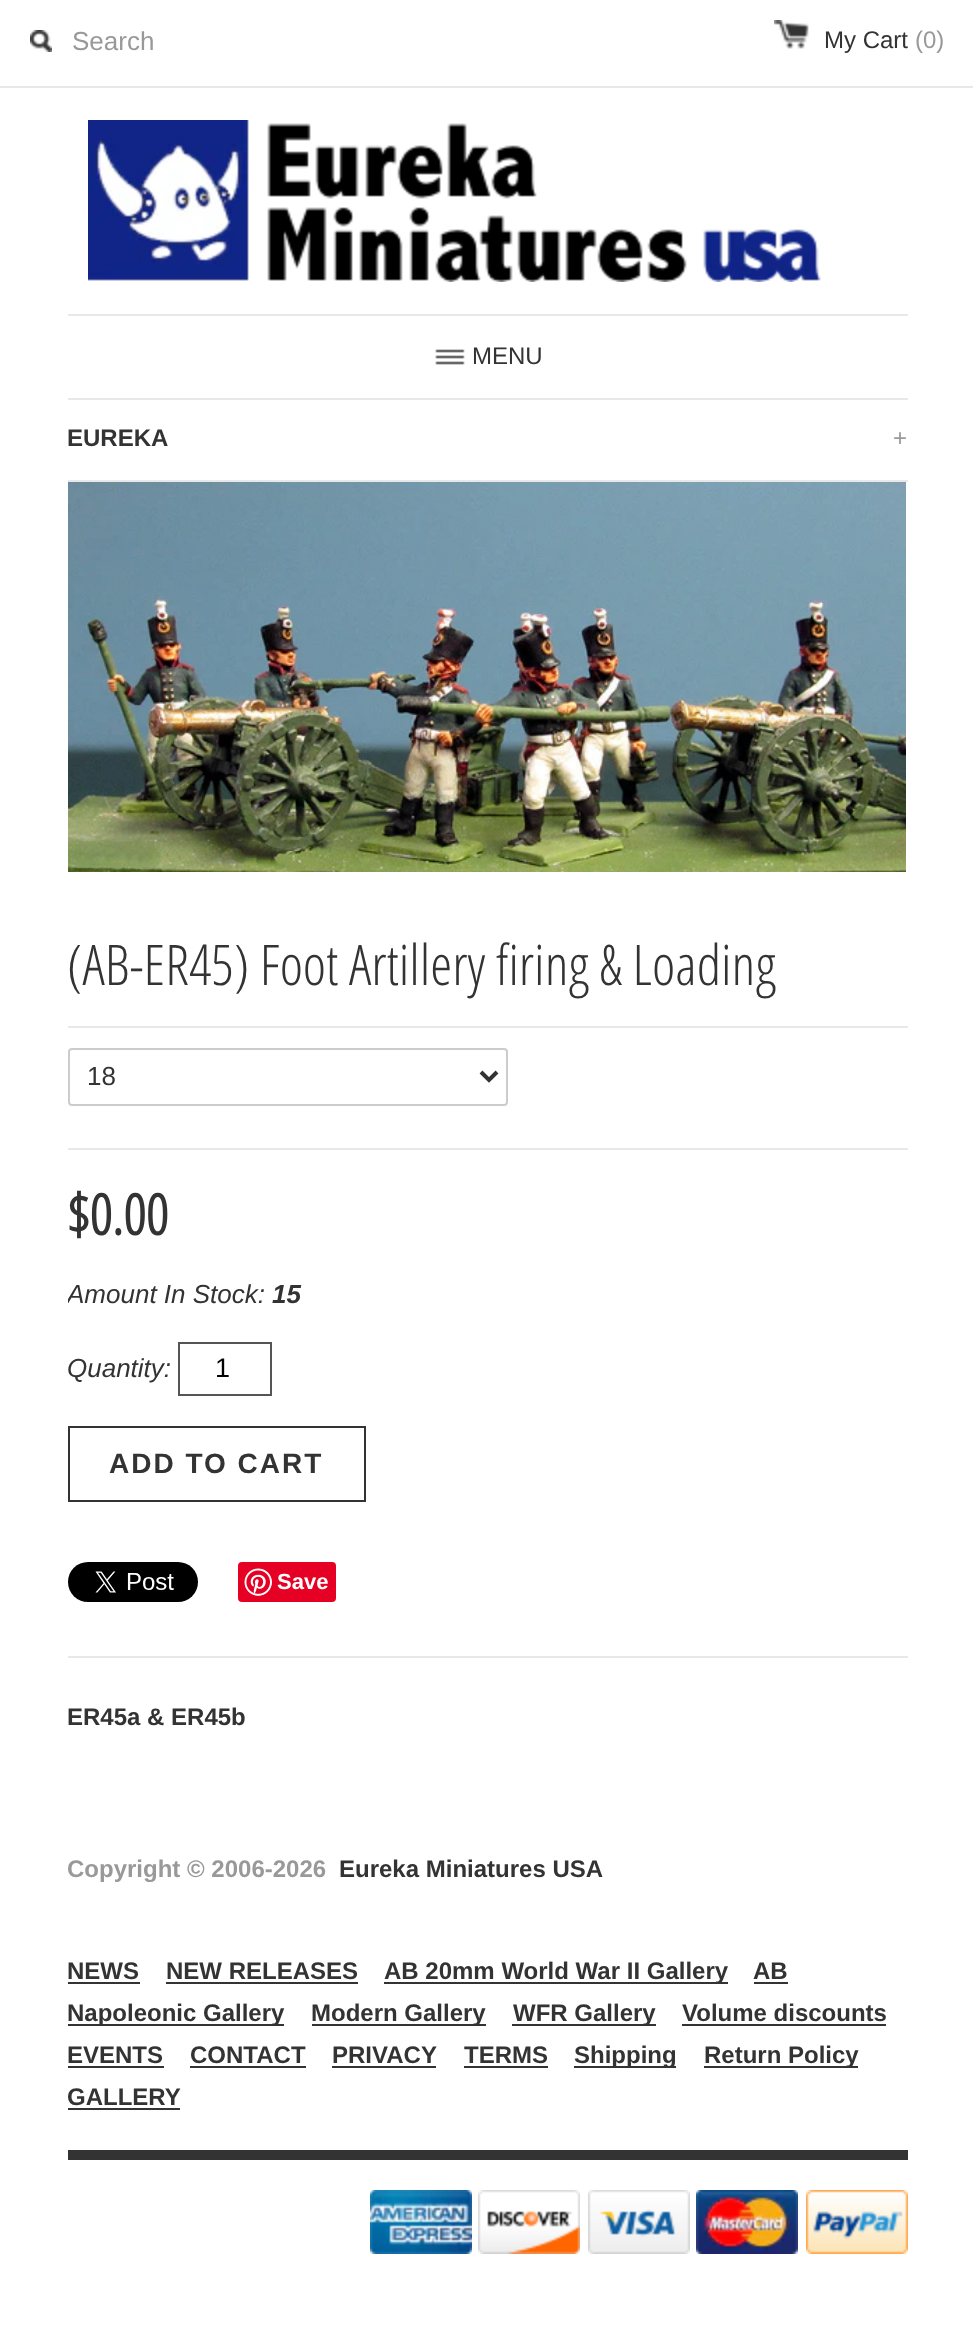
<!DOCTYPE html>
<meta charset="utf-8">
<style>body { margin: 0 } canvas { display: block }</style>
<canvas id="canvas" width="973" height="2328"></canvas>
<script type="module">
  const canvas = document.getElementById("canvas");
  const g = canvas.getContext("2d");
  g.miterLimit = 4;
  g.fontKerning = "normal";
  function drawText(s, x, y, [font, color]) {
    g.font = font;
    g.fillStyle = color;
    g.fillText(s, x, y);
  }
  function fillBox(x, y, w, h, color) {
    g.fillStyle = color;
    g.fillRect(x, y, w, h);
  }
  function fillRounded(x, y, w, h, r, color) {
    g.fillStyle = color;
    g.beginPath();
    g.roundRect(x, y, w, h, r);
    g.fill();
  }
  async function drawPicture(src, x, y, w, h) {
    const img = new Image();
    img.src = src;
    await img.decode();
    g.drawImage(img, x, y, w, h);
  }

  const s1 = ["26px Liberation Sans", "#999999"];
  const s2 = ["24px Liberation Sans", "#333333"];
  const s3 = ["24px Liberation Sans", "#999999"];
  const s4 = ["bold 24px Liberation Sans", "#333333"];
  const s5 = ["300 56px Open Sans Condensed", "#333333"];
  const s6 = ["26px Liberation Sans", "#333333"];
  const s7 = ["bold 56px Open Sans Condensed", "#333333"];
  const s8 = ["italic 26px Liberation Sans", "#333333"];
  const s9 = ["italic bold 26px Liberation Sans", "#333333"];
  const s10 = ["27px Liberation Sans", "#000000"];
  const s11 = ["bold 28px Liberation Sans", "#333333"];
  const s12 = ["bold 22px Liberation Sans", "#FFFFFF"];
  const s13 = ["bold 24px Liberation Sans", "#999999"];

  fillBox(0, 0, 973, 2328, "#FFFFFF");
  fillBox(0, 86, 973, 2, "#E8E8E8");
  await drawPicture("pic1.png", 30, 30, 22, 22);
  drawText("Search", 72, 50, s1);
  await drawPicture("pic2.png", 774, 20, 35, 29);
  drawText("My Cart", 824, 48, s2);
  drawText("(0)", 915, 48, s3);
  await drawPicture("pic3.png", 88, 120, 733, 162);
  fillBox(68, 314, 840, 2, "#E8E8E8");
  await drawPicture("pic4.png", 435, 349, 30, 16);
  drawText("MENU", 472, 364, s2);
  fillBox(68, 398, 840, 2, "#E8E8E8");
  drawText("EUREKA", 67, 446, s4);
  drawText("+", 893, 446, s3);
  fillBox(68, 480, 840, 2, "#E8E8E8");
  await drawPicture("pic5.png", 68, 482, 838, 390);
  drawText("(AB-ER45) Foot Artillery firing & Loading", 67, 985, s5);
  fillBox(68, 1026, 840, 2, "#E8E8E8");
  fillBox(68, 1148, 840, 2, "#E8E8E8");
  g.beginPath();
  g.roundRect(69, 1049, 438, 56, 3);
  g.strokeStyle = "#CCCCCC";
  g.lineWidth = 2;
  g.stroke();
  g.beginPath();
  g.moveTo(481, 1072);
  g.lineTo(489, 1080);
  g.lineTo(497, 1072);
  g.strokeStyle = "#333333";
  g.lineWidth = 4;
  g.stroke();
  drawText("18", 87, 1085, s6);
  drawText("$0.00", 67, 1235, s7);
  g.save();
  g.beginPath();
  g.rect(68, 482, 840, 1278);
  g.clip();
  drawText("Amount In Stock:", 67, 1303, s8);
  g.restore();
  drawText("15", 272, 1303, s9);
  drawText("Quantity:", 67, 1377, s8);
  g.strokeStyle = "#555555";
  g.lineWidth = 2;
  g.strokeRect(179, 1343, 92, 52);
  drawText("1", 215, 1377, s10);
  g.strokeStyle = "#333333";
  g.strokeRect(69, 1427, 296, 74);
  g.letterSpacing = "2px";
  drawText("ADD TO CART", 109, 1473, s11);
  await drawPicture("pic6.png", 68, 1562, 130, 40);
  fillRounded(238, 1562, 98, 40, 4, "#E60023");
  await drawPicture("pic7.png", 244, 1568, 28, 28);
  g.letterSpacing = "0px";
  drawText("Save", 277, 1589, s12);
  fillBox(68, 1656, 840, 2, "#E8E8E8");
  drawText("ER45a & ER45b", 67, 1725, s4);
  fillBox(68, 2150, 840, 10, "#333333");
  drawText("Copyright © 2006-2026", 67, 1877, s13);
  drawText("Eureka Miniatures USA", 339, 1877, s4);
  drawText("NEWS", 67, 1979, s4);
  fillBox(68, 1982, 72, 2, "#333333");
  drawText("NEW RELEASES", 166, 1979, s4);
  fillBox(166, 1982, 192, 2, "#333333");
  fillBox(384, 1982, 344, 2, "#333333");
  drawText("AB 20mm World War II Gallery", 384, 1979, s4);
  drawText("AB", 753, 1979, s4);
  fillBox(754, 1982, 34, 2, "#333333");
  fillBox(68, 2024, 216, 2, "#333333");
  drawText("Napoleonic Gallery", 67, 2021, s4);
  fillBox(312, 2024, 174, 2, "#333333");
  drawText("Modern Gallery", 311, 2021, s4);
  fillBox(512, 2024, 144, 2, "#333333");
  drawText("WFR Gallery", 513, 2021, s4);
  drawText("Volume discounts", 682, 2021, s4);
  fillBox(682, 2024, 204, 2, "#333333");
  drawText("EVENTS", 67, 2063, s4);
  fillBox(68, 2066, 96, 2, "#333333");
  drawText("CONTACT", 190, 2063, s4);
  fillBox(190, 2066, 116, 2, "#333333");
  drawText("PRIVACY", 332, 2063, s4);
  fillBox(332, 2066, 104, 2, "#333333");
  drawText("TERMS", 464, 2063, s4);
  fillBox(464, 2066, 84, 2, "#333333");
  fillBox(574, 2066, 102, 2, "#333333");
  drawText("Shipping", 574, 2063, s4);
  fillBox(704, 2066, 154, 2, "#333333");
  drawText("Return Policy", 704, 2063, s4);
  drawText("GALLERY", 67, 2105, s4);
  fillBox(68, 2108, 112, 2, "#333333");
  await drawPicture("pic8.png", 370, 2190, 102, 64);
  await drawPicture("pic9.png", 478, 2190, 102, 64);
  await drawPicture("pic10.png", 588, 2190, 102, 64);
  await drawPicture("pic11.png", 696, 2190, 102, 64);
  await drawPicture("pic12.png", 806, 2190, 102, 64);
</script>
